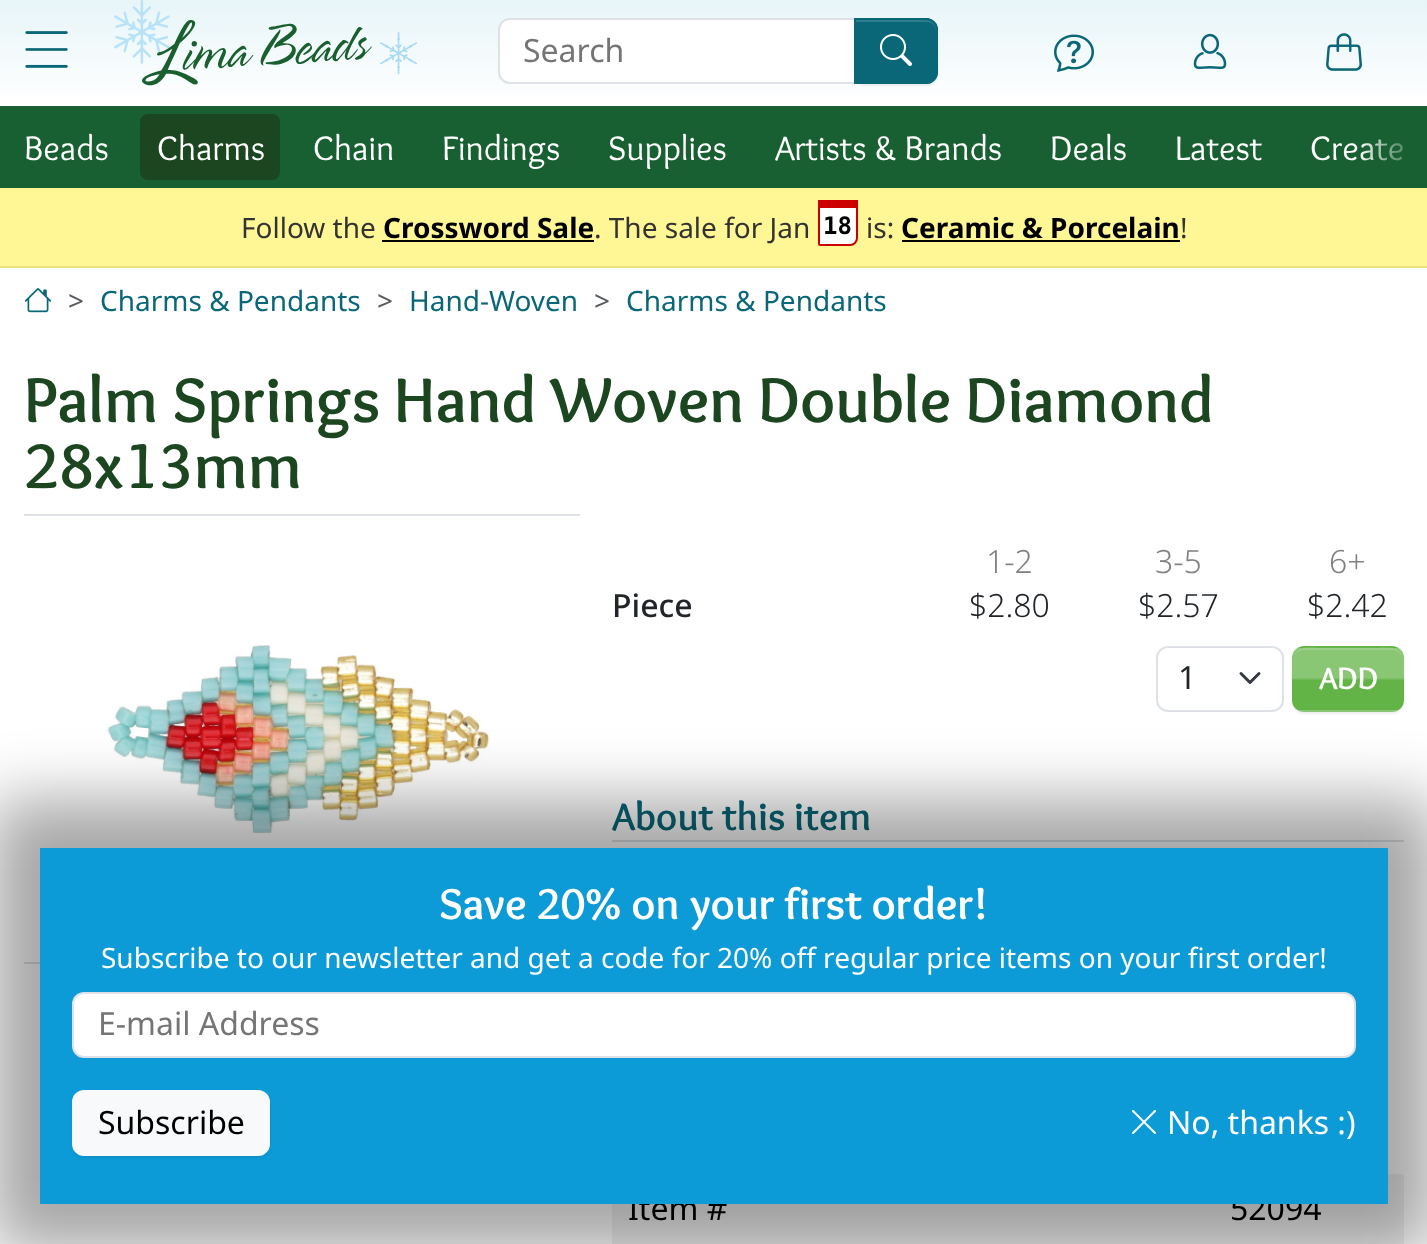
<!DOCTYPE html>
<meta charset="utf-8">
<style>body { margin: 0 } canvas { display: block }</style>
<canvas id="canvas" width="1427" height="1244"></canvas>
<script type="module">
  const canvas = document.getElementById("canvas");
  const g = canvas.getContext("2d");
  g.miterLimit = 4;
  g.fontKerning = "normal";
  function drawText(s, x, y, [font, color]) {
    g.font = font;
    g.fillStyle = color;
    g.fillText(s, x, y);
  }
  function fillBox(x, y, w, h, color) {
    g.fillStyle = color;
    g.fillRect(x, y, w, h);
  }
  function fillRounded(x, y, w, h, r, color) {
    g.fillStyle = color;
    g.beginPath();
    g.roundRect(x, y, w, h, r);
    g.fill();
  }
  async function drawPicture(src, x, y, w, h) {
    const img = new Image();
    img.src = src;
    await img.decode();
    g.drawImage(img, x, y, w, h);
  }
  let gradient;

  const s1 = ["32px Noto Sans", "#757575"];
  const s2 = ["35.25px Overlock", "#FFFFFF"];
  const s3 = ["28px Noto Sans", "#333333"];
  const s4 = ["bold 28px Noto Sans", "#000000"];
  const s5 = ["bold 24px DejaVu Sans Mono", "#000000"];
  const s6 = ["28px Noto Sans", "#595C5F"];
  const s7 = ["28px Noto Sans", "#096778"];
  const s8 = ["bold 65.4px Overlock", "#1C4620"];
  const s9 = ["500 32px Noto Sans", "#212529"];
  const s10 = ["300 32px Noto Sans", "#818080"];
  const s11 = ["300 32px Noto Sans", "#212529"];
  const s12 = ["32px Noto Sans", "#212529"];
  const s13 = ["bold 32px Overlock", "#FFFFFF"];
  const s14 = ["bold 40px Overlock", "#096778"];
  const s15 = ["32px Noto Sans", "#000000"];
  const s16 = ["bold 45px Overlock", "#FFFFFF"];
  const s17 = ["28px Noto Sans", "#FFFFFF"];
  const s18 = ["32px Noto Sans", "#FFFFFF"];

  fillBox(0, 0, 1427, 1244, "#FFFFFF");
  gradient = g.createLinearGradient(714, 0, 714, 106);
  gradient.addColorStop(0, "#E7F5F8");
  gradient.addColorStop(1, "#FFFFFF");
  g.fillStyle = gradient;
  g.fillRect(0, 0, 1427, 95);
  await drawPicture("pic1.png", 114, 0, 56, 64);
  await drawPicture("pic2.png", 380, 32, 37, 42);
  await drawPicture("pic3.png", 25, 31, 43, 37);
  await drawPicture("pic4.png", 142, 20, 230, 66);
  g.fillStyle = "#FFFFFF";
  g.beginPath();
  g.roundRect(499, 19, 356, 64, [11, 0, 0, 11]);
  g.fill();
  g.strokeStyle = "#DEE2E6";
  g.lineWidth = 2;
  g.stroke();
  drawText("Search", 523, 62, s1);
  g.fillStyle = "rgba(0, 0, 0, 0.07)";
  g.filter = "blur(1px)";
  g.beginPath();
  g.roundRect(854, 20, 84, 66, 12);
  g.fill();
  g.filter = "none";
  g.fillStyle = "#096778";
  g.beginPath();
  g.roundRect(854, 18, 84, 66, [0, 12, 12, 0]);
  g.fill();
  g.fillStyle = "#2E7E8C";
  g.beginPath();
  g.moveTo(856, 22);
  g.lineTo(926, 22);
  g.bezierCurveTo(932, 22, 936, 26, 936, 32);
  g.lineTo(936, 30);
  g.bezierCurveTo(936, 24, 932, 20, 926, 20);
  g.lineTo(856, 20);
  g.closePath();
  g.fill();
  g.beginPath();
  g.roundRect(855, 19, 82, 64, [0, 11, 11, 0]);
  g.strokeStyle = "#096778";
  g.stroke();
  await drawPicture("pic5.png", 880, 34, 32, 32);
  await drawPicture("pic6.png", 1054, 34, 40, 38);
  await drawPicture("pic7.png", 1193, 33, 34, 37);
  await drawPicture("pic8.png", 1326, 33, 36, 38);
  fillBox(0, 106, 1427, 82, "#186031");
  drawText("Beads", 24, 160, s2);
  fillRounded(140, 114, 140, 66, 8, "#1C4620");
  drawText("Charms", 157, 160, s2);
  drawText("Chain", 313, 160, s2);
  drawText("Findings", 442, 160, s2);
  drawText("Supplies", 608, 160, s2);
  drawText("Artists & Brands", 775, 160, s2);
  drawText("Deals", 1050, 160, s2);
  drawText("Latest", 1175, 160, s2);
  drawText("Create", 1310, 160, s2);
  gradient = g.createLinearGradient(1358, 146, 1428, 146);
  gradient.addColorStop(0, "rgba(24, 96, 49, 0)");
  gradient.addColorStop(0.5, "rgba(24, 96, 49, 0.6)");
  gradient.addColorStop(1, "#186031");
  g.fillStyle = gradient;
  g.fillRect(1360, 139, 43, 22);
  fillBox(0, 188, 1427, 78, "#FFF695");
  fillBox(0, 266, 1427, 2, "#EDE37D");
  drawText("Follow the", 241, 238, s3);
  drawText("Crossword Sale", 383, 238, s4);
  drawText(". The sale for Jan", 594, 238, s3);
  fillBox(382, 240, 212, 2, "#000000");
  g.fillStyle = "#FFFFFF";
  g.beginPath();
  g.roundRect(820, 208, 36, 36, [0, 0, 6, 0]);
  g.fill();
  g.beginPath();
  g.roundRect(819, 201, 38, 44, [0, 0, 7, 1]);
  g.strokeStyle = "#CC0000";
  g.stroke();
  fillBox(818, 202, 40, 6, "#CC0000");
  drawText("18", 823, 234, s5);
  drawText("is:", 866, 238, s3);
  drawText("Ceramic & Porcelain", 901, 238, s4);
  fillBox(902, 240, 278, 2, "#000000");
  drawText("!", 1180, 238, s3);
  await drawPicture("pic9.png", 24, 288, 28, 25);
  drawText(">", 68, 311, s6);
  drawText("Charms & Pendants", 100, 311, s7);
  drawText(">", 377, 311, s6);
  drawText("Hand-Woven", 409, 311, s7);
  drawText(">", 594, 311, s6);
  drawText("Charms & Pendants", 626, 311, s7);
  drawText("Palm Springs Hand Woven Double Diamond", 24, 422, s8);
  drawText("28x13mm", 24, 488, s8);
  fillBox(24, 514, 556, 2, "#DEE2E6");
  fillBox(24, 962, 16, 2, "#DEE2E6");
  await drawPicture("pic10.png", 107, 645, 383, 189);
  drawText("Piece", 612, 617, s9);
  drawText("1-2", 986, 573, s10);
  drawText("$2.80", 969, 617, s11);
  drawText("3-5", 1155, 573, s10);
  drawText("$2.57", 1138, 617, s11);
  drawText("6+", 1329, 573, s10);
  drawText("$2.42", 1307, 617, s11);
  g.beginPath();
  g.moveTo(1241, 673.5);
  g.lineTo(1250, 682.5);
  g.lineTo(1259, 673.5);
  g.strokeStyle = "#343A40";
  g.lineWidth = 3;
  g.lineCap = "round";
  g.lineJoin = "round";
  g.stroke();
  g.beginPath();
  g.roundRect(1157, 647, 126, 64, 11);
  g.strokeStyle = "#DEE2E6";
  g.lineWidth = 2;
  g.lineJoin = "miter";
  g.stroke();
  drawText("1", 1178, 689, s12);
  g.fillStyle = "rgba(0, 0, 0, 0.07)";
  g.filter = "blur(1px)";
  g.beginPath();
  g.roundRect(1292, 648, 112, 66, 12);
  g.fill();
  g.filter = "none";
  g.save();
  g.beginPath();
  g.roundRect(1292, 646, 112, 66, 12);
  g.clip();
  gradient = g.createLinearGradient(1348, 586, 1348, 648);
  gradient.addColorStop(0.48, "#89C774");
  gradient.addColorStop(0.52, "#62B446");
  g.fillStyle = gradient;
  g.fillRect(1292, 646, 112, 2);
  gradient = g.createLinearGradient(1348, 648, 1348, 710);
  gradient.addColorStop(0.48, "#89C774");
  gradient.addColorStop(0.52, "#62B446");
  g.fillStyle = gradient;
  g.fillRect(1292, 648, 112, 62);
  gradient = g.createLinearGradient(1348, 710, 1348, 772);
  gradient.addColorStop(0.48, "#89C774");
  gradient.addColorStop(0.52, "#62B446");
  g.fillStyle = gradient;
  g.fillRect(1292, 710, 112, 2);
  g.restore();
  g.fillStyle = "#9BCF89";
  g.beginPath();
  g.moveTo(1304, 650);
  g.lineTo(1392, 650);
  g.bezierCurveTo(1398, 650, 1402, 654, 1402, 660);
  g.bezierCurveTo(1402, 645, 1389, 648, 1377, 648);
  g.lineTo(1319, 648);
  g.bezierCurveTo(1307, 648, 1294, 645, 1294, 660);
  g.bezierCurveTo(1294, 654, 1298, 650, 1304, 650);
  g.closePath();
  g.fill();
  drawText("ADD", 1319, 689, s13);
  fillBox(612, 840, 792, 2, "#DEE2E6");
  drawText("About this item", 612, 830, s14);
  fillBox(612, 1204, 602, 40, "#F2F2F2");
  drawText("Item #", 628, 1220, s15);
  fillBox(1214, 1174, 190, 70, "#F2F2F2");
  drawText("52094", 1230, 1220, s15);
  g.fillStyle = "rgba(0, 0, 0, 0.35)";
  g.filter = "blur(32px)";
  g.beginPath();
  g.rect(-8, 800, 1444, 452);
  g.fill();
  g.filter = "none";
  fillBox(40, 848, 1348, 356, "#0D9BD7");
  drawText("Save 20% on your first order!", 439, 919, s16);
  drawText("Subscribe to our newsletter and get a code for 20% off regular price items on your first order!", 101, 968, s17);
  g.beginPath();
  g.roundRect(73, 993, 1282, 64, 11);
  g.fill();
  g.stroke();
  drawText("E-mail Address", 98, 1035, s1);
  g.fillStyle = "rgba(0, 0, 0, 0.07)";
  g.filter = "blur(1px)";
  g.beginPath();
  g.roundRect(72, 1092, 198, 66, 12);
  g.fill();
  g.filter = "none";
  g.fillStyle = "#F8F9FA";
  g.beginPath();
  g.roundRect(73, 1091, 196, 64, 11);
  g.fill();
  g.strokeStyle = "#F8F9FA";
  g.stroke();
  drawText("Subscribe", 98, 1134, s15);
  await drawPicture("pic11.png", 1132, 1110, 24, 24);
  drawText("No, thanks :)", 1167, 1134, s18);
</script>
